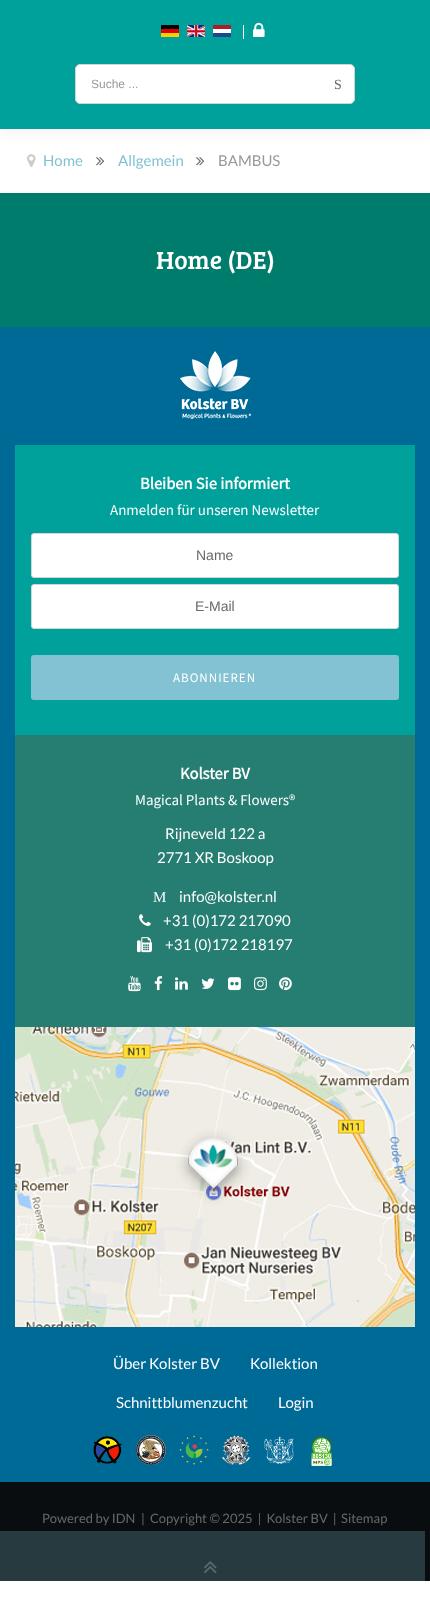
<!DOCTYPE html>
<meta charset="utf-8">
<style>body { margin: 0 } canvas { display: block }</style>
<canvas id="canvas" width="430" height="1599"></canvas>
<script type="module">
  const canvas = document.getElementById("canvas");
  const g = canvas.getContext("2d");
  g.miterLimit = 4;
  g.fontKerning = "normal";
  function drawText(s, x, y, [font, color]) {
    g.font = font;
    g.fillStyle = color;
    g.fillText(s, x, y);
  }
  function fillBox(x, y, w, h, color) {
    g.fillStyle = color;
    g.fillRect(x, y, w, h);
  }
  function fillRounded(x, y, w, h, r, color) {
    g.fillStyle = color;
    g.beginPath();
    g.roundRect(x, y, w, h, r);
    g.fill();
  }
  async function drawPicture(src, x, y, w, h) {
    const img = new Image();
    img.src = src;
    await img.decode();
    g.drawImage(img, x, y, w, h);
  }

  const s1 = ["12px Liberation Sans", "#999999"];
  const s2 = ["14px Liberation Serif", "#686868"];
  const s3 = ["15px Lato", "#82C2D3"];
  const s4 = ["15px Lato", "#999999"];
  const s5 = ["25.5px Bree Serif", "#FFFFFF"];
  const s6 = ["bold 16.5px Source Sans Pro", "#FFFFFF"];
  const s7 = ["15px Source Sans Pro", "#FFFFFF"];
  const s8 = ["14px Liberation Sans", "#686868"];
  const s9 = ["13px Source Sans Pro", "#FFFFFF"];
  const s10 = ["15px Lato", "#FFFFFF"];
  const s11 = ["15px Liberation Serif", "#FFFFFF"];
  const s12 = ["13px Lato", "#686868"];

  fillBox(0, 0, 430, 1599, "#FFFFFF");
  await drawPicture("pic5.png", 27, 154, 9, 13);
  await drawPicture("pic6.png", 96, 157, 9, 9);
  await drawPicture("pic6.png", 196, 157, 9, 9);
  g.fillStyle = "rgba(128, 128, 128, 0.08)";
  g.filter = "blur(7.5px)";
  g.beginPath();
  g.rect(0, 5, 430, 129);
  g.fill();
  g.filter = "none";
  fillBox(0, 0, 430, 129, "#00A19B");
  await drawPicture("pic1.png", 161, 25, 18, 12);
  await drawPicture("pic2.png", 187, 25, 18, 12);
  await drawPicture("pic3.png", 213, 25, 18, 12);
  fillBox(243, 25, 1, 14, "#FFFFFF");
  await drawPicture("pic4.png", 253, 22, 12, 15);
  g.beginPath();
  g.roundRect(75.5, 64.5, 279, 39, 4.5);
  g.fill();
  g.strokeStyle = "#D5D5D5";
  g.stroke();
  drawText("Suche ...", 91, 88, s1);
  drawText("S", 334, 89, s2);
  drawText("Home", 43, 166, s3);
  drawText("Allgemein", 118, 166, s3);
  drawText("BAMBUS", 218, 166, s4);
  fillBox(0, 193, 430, 134, "#007C6C");
  drawText("Home (DE)", 156, 269, s5);
  fillBox(0, 327, 430, 1155, "#006A96");
  await drawPicture("pic7.png", 180, 351, 71, 68);
  fillBox(15, 445, 400, 290, "#00A19B");
  drawText("Bleiben Sie informiert", 140, 489, s6);
  drawText("Anmelden für unseren Newsletter", 110, 515, s7);
  g.beginPath();
  g.roundRect(31.5, 533.5, 367, 44, 2.5);
  g.fill();
  g.stroke();
  drawText("Name", 196, 560, s8);
  g.fillStyle = "#FFFFFF";
  g.beginPath();
  g.roundRect(31.5, 584.5, 367, 44, 2.5);
  g.fill();
  g.stroke();
  drawText("E-Mail", 195, 611, s8);
  fillRounded(31, 655, 368, 45, 3, "#82C2D3");
  g.letterSpacing = "1px";
  drawText("ABONNIEREN", 173, 682, s9);
  fillBox(15, 735, 400, 292, "#267D71");
  g.letterSpacing = "0px";
  drawText("Kolster BV", 180, 779, s6);
  drawText("Magical Plants & Flowers®", 135, 805, s7);
  drawText("Rijneveld 122 a", 165, 839, s10);
  drawText("2771 XR Boskoop", 157, 863, s10);
  drawText("M", 153, 902, s11);
  drawText("info@kolster.nl", 179, 902, s10);
  await drawPicture("pic8.png", 139, 914, 12, 12);
  drawText("+31 (0)172 217090", 163, 926, s10);
  await drawPicture("pic9.png", 137, 937, 15, 16);
  drawText("+31 (0)172 218197", 165, 950, s10);
  await drawPicture("pic10.png", 128, 976, 13, 16);
  await drawPicture("pic11.png", 154, 976, 9, 15);
  await drawPicture("pic12.png", 175, 977, 13, 13);
  await drawPicture("pic13.png", 201, 978, 14, 11);
  await drawPicture("pic14.png", 228, 977, 13, 14);
  await drawPicture("pic15.png", 254, 977, 13, 14);
  await drawPicture("pic16.png", 279, 977, 13, 14);
  await drawPicture("pic17.png", 15, 1027, 400, 300);
  drawText("Über Kolster BV", 113, 1369, s10);
  drawText("Kollektion", 250, 1369, s10);
  drawText("Schnittblumenzucht", 116, 1408, s10);
  drawText("Login", 278, 1408, s10);
  await drawPicture("pic18.png", 93, 1436, 29, 28);
  await drawPicture("pic19.png", 136, 1435, 30, 30);
  await drawPicture("pic20.png", 179, 1435, 30, 30);
  await drawPicture("pic21.png", 221, 1435, 30, 30);
  await drawPicture("pic22.png", 264, 1436, 30, 28);
  await drawPicture("pic23.png", 310, 1435, 23, 31);
  fillBox(0, 1482, 430, 99, "#090D0F");
  drawText("Powered by IDN", 42, 1523, s12);
  drawText("|  Copyright © 2025  |  Kolster BV  |", 141, 1523, s12);
  drawText("Sitemap", 341, 1523, s12);
  fillBox(0, 1531, 425, 50, "#273A40");
  await drawPicture("pic24.png", 204, 1561, 13, 13);
</script>
